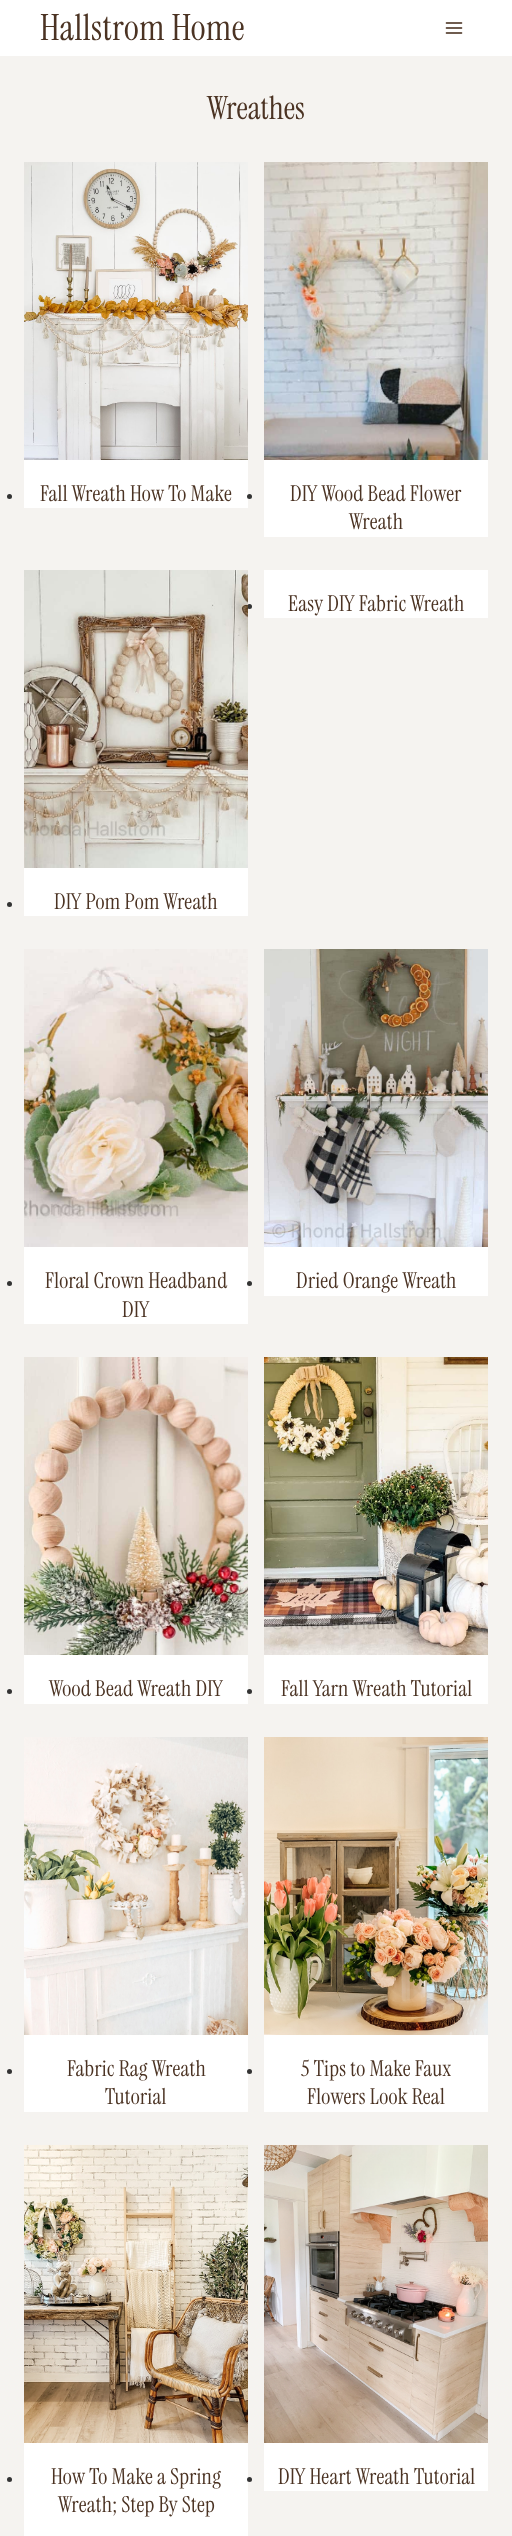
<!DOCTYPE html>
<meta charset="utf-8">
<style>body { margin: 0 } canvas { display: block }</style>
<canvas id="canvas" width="512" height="2536"></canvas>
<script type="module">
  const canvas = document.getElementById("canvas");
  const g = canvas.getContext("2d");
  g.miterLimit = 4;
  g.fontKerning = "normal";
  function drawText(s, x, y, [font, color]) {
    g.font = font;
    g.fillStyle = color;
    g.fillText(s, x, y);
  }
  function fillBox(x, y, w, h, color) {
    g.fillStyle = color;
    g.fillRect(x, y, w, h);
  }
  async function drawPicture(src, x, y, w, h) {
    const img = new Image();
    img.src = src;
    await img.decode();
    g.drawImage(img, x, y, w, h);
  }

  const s1 = ["36px Instrument Serif", "#4B3323"];
  const s2 = ["32px Instrument Serif", "#4B3323"];
  const s3 = ["22px Instrument Serif", "#4B3323"];

  fillBox(0, 0, 512, 2536, "#F5F3F0");
  fillBox(0, 0, 512, 56, "#FFFFFF");
  g.letterSpacing = "0.4px";
  drawText("Hallstrom Home", 40, 40, s1);
  await drawPicture("pic1.png", 445, 22, 18, 12);
  g.letterSpacing = "0px";
  drawText("Wreathes", 207, 119, s2);
  g.fillStyle = "#333333";
  g.beginPath();
  g.arc(9.5, 496.5, 2.5, 0, Math.PI * 2);
  g.fill();
  fillBox(24, 460, 224, 48, "#FFFFFF");
  await drawPicture("pic2.png", 24, 162, 224, 298);
  g.letterSpacing = "0.25px";
  drawText("Fall Wreath How To Make", 40, 501, s3);
  g.fillStyle = "#333333";
  g.beginPath();
  g.arc(249.5, 496.5, 2.5, 0, Math.PI * 2);
  g.fill();
  fillBox(264, 460, 224, 77, "#FFFFFF");
  await drawPicture("pic3.png", 264, 162, 224, 298);
  drawText("DIY Wood Bead Flower", 290, 501, s3);
  drawText("Wreath", 349, 529, s3);
  g.fillStyle = "#333333";
  g.beginPath();
  g.arc(249.5, 606.5, 2.5, 0, Math.PI * 2);
  g.fill();
  fillBox(264, 570, 224, 48, "#FFFFFF");
  drawText("Easy DIY Fabric Wreath", 288, 611, s3);
  g.fillStyle = "#333333";
  g.beginPath();
  g.arc(9.5, 904.5, 2.5, 0, Math.PI * 2);
  g.fill();
  fillBox(24, 868, 224, 48, "#FFFFFF");
  await drawPicture("pic4.png", 24, 570, 224, 298);
  drawText("DIY Pom Pom Wreath", 54, 909, s3);
  g.fillStyle = "#333333";
  g.beginPath();
  g.arc(9.5, 1283.5, 2.5, 0, Math.PI * 2);
  g.fill();
  fillBox(24, 1247, 224, 77, "#FFFFFF");
  await drawPicture("pic5.png", 24, 949, 224, 298);
  drawText("Floral Crown Headband", 45, 1288, s3);
  drawText("DIY", 122, 1317, s3);
  g.fillStyle = "#333333";
  g.beginPath();
  g.arc(249.5, 1283.5, 2.5, 0, Math.PI * 2);
  g.fill();
  fillBox(264, 1247, 224, 49, "#FFFFFF");
  await drawPicture("pic6.png", 264, 949, 224, 298);
  drawText("Dried Orange Wreath", 296, 1288, s3);
  g.fillStyle = "#333333";
  g.beginPath();
  g.arc(9.5, 1691.5, 2.5, 0, Math.PI * 2);
  g.fill();
  fillBox(24, 1655, 224, 49, "#FFFFFF");
  await drawPicture("pic7.png", 24, 1357, 224, 298);
  drawText("Wood Bead Wreath DIY", 49, 1696, s3);
  g.fillStyle = "#333333";
  g.beginPath();
  g.arc(249.5, 1691.5, 2.5, 0, Math.PI * 2);
  g.fill();
  fillBox(264, 1655, 224, 49, "#FFFFFF");
  await drawPicture("pic8.png", 264, 1357, 224, 298);
  drawText("Fall Yarn Wreath Tutorial", 281, 1696, s3);
  g.fillStyle = "#333333";
  g.beginPath();
  g.arc(9.5, 2071.5, 2.5, 0, Math.PI * 2);
  g.fill();
  fillBox(24, 2035, 224, 77, "#FFFFFF");
  await drawPicture("pic9.png", 24, 1737, 224, 298);
  drawText("Fabric Rag Wreath", 67, 2076, s3);
  drawText("Tutorial", 105, 2104, s3);
  g.fillStyle = "#333333";
  g.beginPath();
  g.arc(249.5, 2071.5, 2.5, 0, Math.PI * 2);
  g.fill();
  fillBox(264, 2035, 224, 77, "#FFFFFF");
  await drawPicture("pic10.png", 264, 1737, 224, 298);
  drawText("5 Tips to Make Faux", 301, 2076, s3);
  drawText("Flowers Look Real", 307, 2104, s3);
  g.fillStyle = "#333333";
  g.beginPath();
  g.arc(9.5, 2479.5, 2.5, 0, Math.PI * 2);
  g.fill();
  fillBox(24, 2443, 224, 93, "#FFFFFF");
  await drawPicture("pic11.png", 24, 2145, 224, 298);
  drawText("How To Make a Spring", 51, 2484, s3);
  drawText("Wreath; Step By Step", 58, 2512, s3);
  g.fillStyle = "#333333";
  g.beginPath();
  g.arc(249.5, 2479.5, 2.5, 0, Math.PI * 2);
  g.fill();
  fillBox(264, 2443, 224, 48, "#FFFFFF");
  await drawPicture("pic12.png", 264, 2145, 224, 298);
  drawText("DIY Heart Wreath Tutorial", 278, 2484, s3);
</script>
